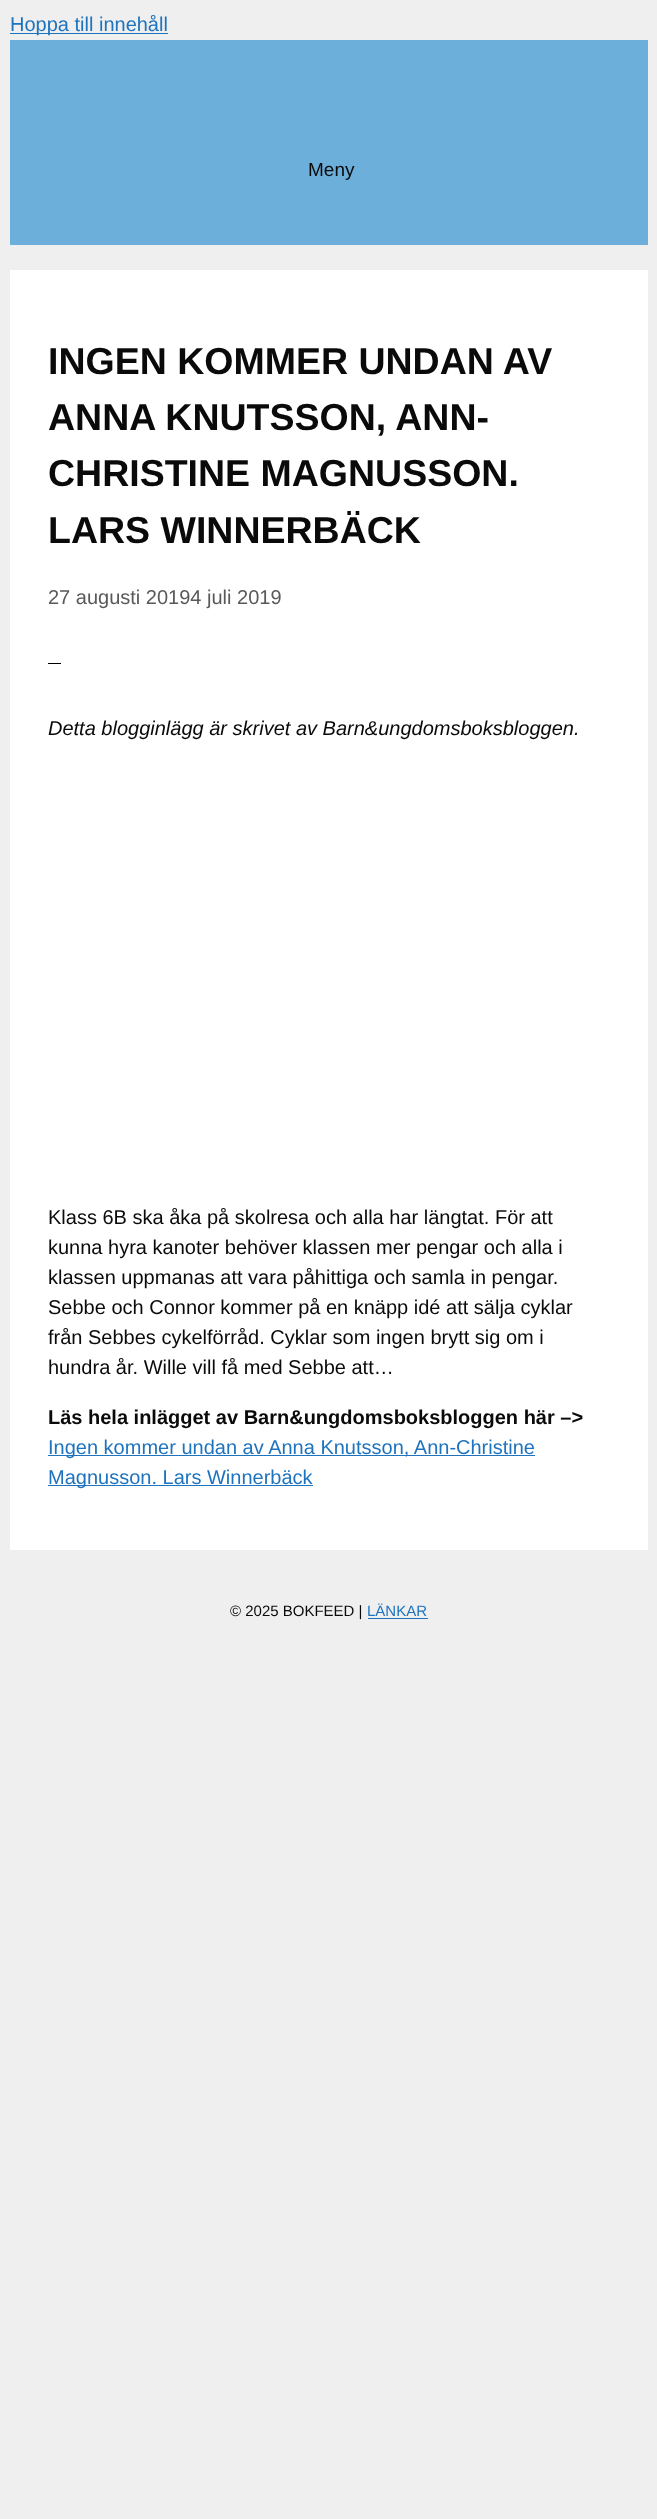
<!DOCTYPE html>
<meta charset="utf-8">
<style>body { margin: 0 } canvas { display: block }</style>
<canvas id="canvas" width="657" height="2519"></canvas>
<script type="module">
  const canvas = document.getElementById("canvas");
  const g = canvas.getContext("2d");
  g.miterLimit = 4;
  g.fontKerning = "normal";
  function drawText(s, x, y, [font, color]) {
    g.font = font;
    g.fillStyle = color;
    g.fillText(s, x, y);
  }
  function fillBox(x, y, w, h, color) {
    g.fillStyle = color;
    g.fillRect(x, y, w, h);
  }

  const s1 = ["20px Arimo", "#1E73BE"];
  const s2 = ["19px Arimo", "#0A0A0A"];
  const s3 = ["bold 37.5px Arimo", "#0A0A0A"];
  const s4 = ["20px Arimo", "#595959"];
  const s5 = ["italic 20px Arimo", "#0A0A0A"];
  const s6 = ["20px Arimo", "#0A0A0A"];
  const s7 = ["bold 20px Arimo", "#0A0A0A"];
  const s8 = ["15px Arimo", "#0A0A0A"];
  const s9 = ["15px Arimo", "#1E73BE"];

  fillBox(0, 0, 657, 2519, "#EFEFEF");
  fillBox(10, 33, 158, 1, "#1E73BE");
  drawText("Hoppa till innehåll", 10, 31, s1);
  fillBox(10, 40, 638, 205, "#6DAFDB");
  drawText("Meny", 308, 176, s2);
  fillBox(10, 270, 638, 1280, "#FFFFFF");
  drawText("INGEN KOMMER UNDAN AV", 48, 374, s3);
  drawText("ANNA KNUTSSON, ANN-", 48, 430, s3);
  drawText("CHRISTINE MAGNUSSON.", 48, 486, s3);
  drawText("LARS WINNERBÄCK", 48, 543, s3);
  drawText("27 augusti 20194 juli 2019", 48, 604, s4);
  fillBox(48, 663, 13, 1, "#000000");
  drawText("Detta blogginlägg är skrivet av Barn&ungdomsboksbloggen.", 48, 735, s5);
  drawText("Klass 6B ska åka på skolresa och alla har längtat. För att", 48, 1224, s6);
  drawText("kunna hyra kanoter behöver klassen mer pengar och alla i", 48, 1254, s6);
  drawText("klassen uppmanas att vara påhittiga och samla in pengar.", 48, 1284, s6);
  drawText("Sebbe och Connor kommer på en knäpp idé att sälja cyklar", 48, 1314, s6);
  drawText("från Sebbes cykelförråd. Cyklar som ingen brytt sig om i", 48, 1344, s6);
  drawText("hundra år. Wille vill få med Sebbe att…", 48, 1374, s6);
  drawText("Läs hela inlägget av Barn&ungdomsboksbloggen här –>", 48, 1424, s7);
  fillBox(48, 1455, 487, 1, "#1E73BE");
  drawText("Ingen kommer undan av Anna Knutsson, Ann-Christine", 48, 1454, s1);
  fillBox(48, 1485, 265, 1, "#1E73BE");
  drawText("Magnusson. Lars Winnerbäck", 48, 1484, s1);
  drawText("© 2025 BOKFEED |", 230, 1616, s8);
  drawText("LÄNKAR", 367, 1616, s9);
  fillBox(368, 1618, 60, 1, "#1E73BE");
</script>
